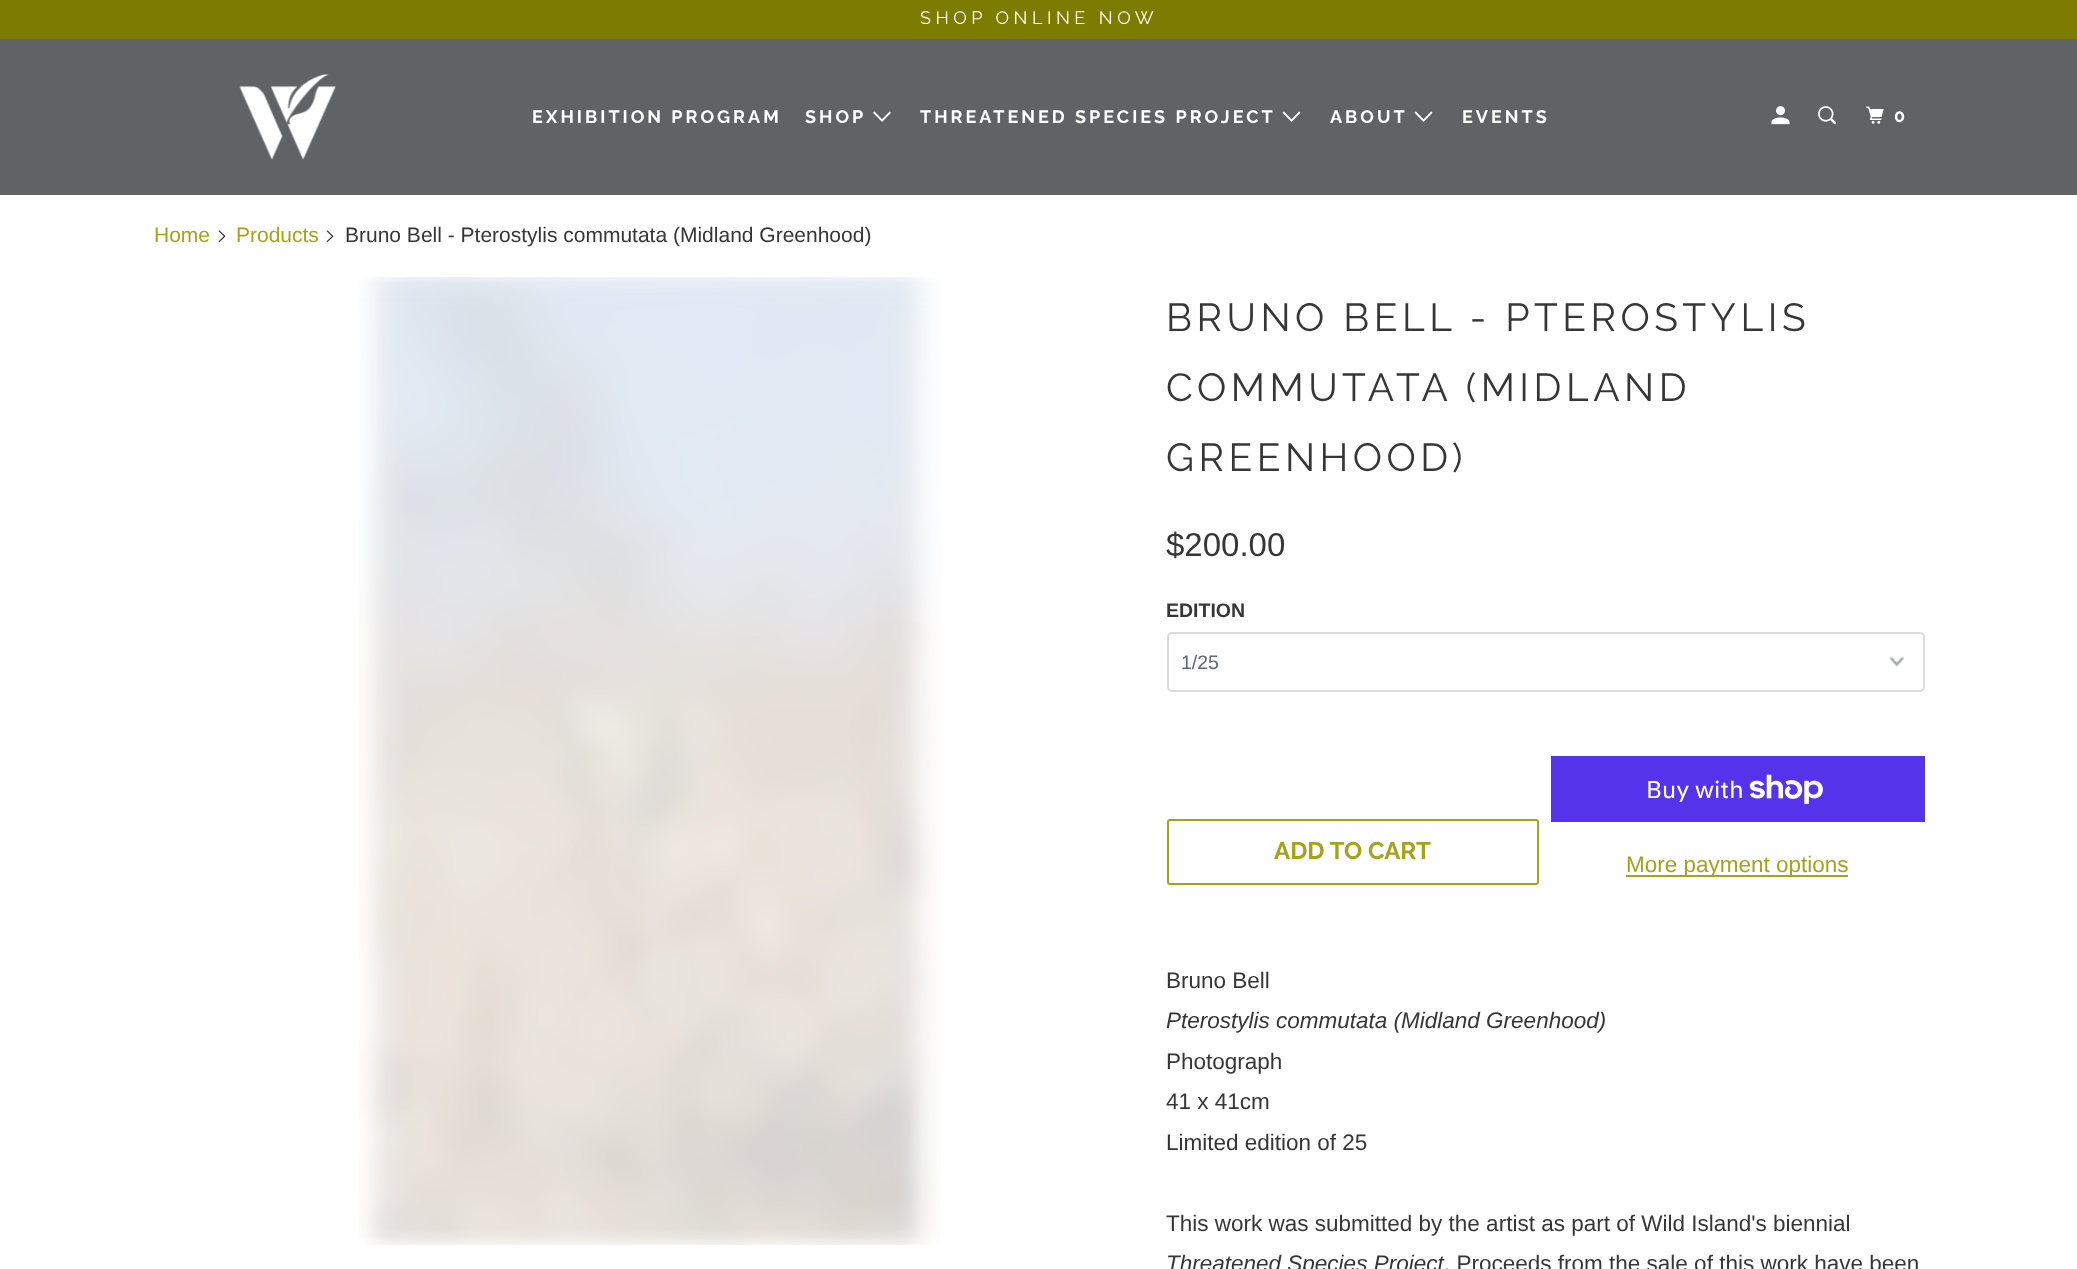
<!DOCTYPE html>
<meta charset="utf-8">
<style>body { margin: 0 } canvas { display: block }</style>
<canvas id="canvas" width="2077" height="1269"></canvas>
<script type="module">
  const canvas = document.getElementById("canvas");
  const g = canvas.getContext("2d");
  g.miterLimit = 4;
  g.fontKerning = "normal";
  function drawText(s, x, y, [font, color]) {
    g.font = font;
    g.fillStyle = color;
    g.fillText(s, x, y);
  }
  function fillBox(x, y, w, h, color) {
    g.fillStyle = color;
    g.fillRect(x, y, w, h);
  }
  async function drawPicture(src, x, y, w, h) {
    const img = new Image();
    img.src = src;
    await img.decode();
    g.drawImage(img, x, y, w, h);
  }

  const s1 = ["18px Raleway", "#FFFFFF"];
  const s2 = ["bold 18px Raleway", "#FFFFFF"];
  const s3 = ["21px Liberation Sans", "#A4A41B"];
  const s4 = ["21px Liberation Sans", "#363636"];
  const s5 = ["39px Raleway", "#363636"];
  const s6 = ["33px Liberation Sans", "#363636"];
  const s7 = ["bold 19.5px Liberation Sans", "#363636"];
  const s8 = ["19.5px Liberation Sans", "#5F6A7D"];
  const s9 = ["bold 24px Raleway", "#A4A41B"];
  const s10 = ["24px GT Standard", "#FFFFFF"];
  const s11 = ["22.5px Liberation Sans", "#A4A41B"];
  const s12 = ["22.5px Liberation Sans", "#363636"];
  const s13 = ["italic 22.5px Liberation Sans", "#363636"];

  fillBox(0, 0, 2077, 1269, "#FFFFFF");
  fillBox(0, 0, 2077, 39, "#7C7C00");
  g.letterSpacing = "4.5px";
  drawText("SHOP ONLINE NOW", 920, 24, s1);
  fillBox(0, 39, 2077, 156, "#606265");
  await drawPicture("pic1.png", 239, 74, 97, 86);
  g.letterSpacing = "3px";
  drawText("EXHIBITION PROGRAM", 532, 123, s2);
  drawText("SHOP", 805, 123, s2);
  await drawPicture("pic2.png", 873, 111, 18, 11);
  drawText("THREATENED SPECIES PROJECT", 920, 123, s2);
  await drawPicture("pic3.png", 1282, 111, 19, 11);
  drawText("ABOUT", 1330, 123, s2);
  await drawPicture("pic3.png", 1414, 111, 19, 11);
  drawText("EVENTS", 1462, 123, s2);
  await drawPicture("pic4.png", 1771, 106, 19, 19);
  await drawPicture("pic5.png", 1818, 106, 18, 19);
  await drawPicture("pic6.png", 1866, 106, 18, 18);
  drawText("0", 1894, 122, s2);
  g.letterSpacing = "0px";
  drawText("Home", 154, 242, s3);
  await drawPicture("pic7.png", 218, 230, 8, 13);
  drawText("Products", 236, 242, s3);
  await drawPicture("pic7.png", 326, 230, 8, 13);
  drawText("Bruno Bell - Pterostylis commutata (Midland Greenhood)", 345, 242, s4);
  await drawPicture("pic8.png", 358, 277, 583, 968);
  g.letterSpacing = "4.5px";
  drawText("BRUNO BELL - PTEROSTYLIS", 1166, 331, s5);
  drawText("COMMUTATA (MIDLAND", 1166, 401, s5);
  drawText("GREENHOOD)", 1166, 471, s5);
  g.letterSpacing = "0px";
  drawText("$200.00", 1166, 556, s6);
  drawText("EDITION", 1166, 617, s7);
  await drawPicture("pic9.png", 1889, 656, 15, 11);
  g.beginPath();
  g.roundRect(1168, 633, 756, 58, 4);
  g.strokeStyle = "#D9DBDC";
  g.lineWidth = 2;
  g.stroke();
  drawText("1/25", 1181, 669, s8);
  g.beginPath();
  g.roundRect(1168, 820, 370, 64, 2);
  g.strokeStyle = "#A4A41B";
  g.stroke();
  drawText("ADD TO CART", 1274, 859, s9);
  fillBox(1551, 756, 374, 66, "#5433EB");
  drawText("Buy with", 1646, 798, s10);
  await drawPicture("pic10.png", 1749, 774, 74, 30);
  fillBox(1626, 875, 222, 2, "#A4A41B");
  drawText("More payment options", 1626, 872, s11);
  drawText("Bruno Bell", 1166, 988, s12);
  drawText("Pterostylis commutata (Midland Greenhood)", 1166, 1028, s13);
  drawText("Photograph", 1166, 1069, s12);
  drawText("41 x 41cm", 1166, 1109, s12);
  drawText("Limited edition of 25", 1166, 1150, s12);
  drawText("This work was submitted by the artist as part of Wild Island's biennial", 1166, 1231, s12);
  drawText("Threatened Species Project", 1166, 1271, s13);
  drawText(". Proceeds from the sale of this work have been", 1444, 1271, s12);
</script>
